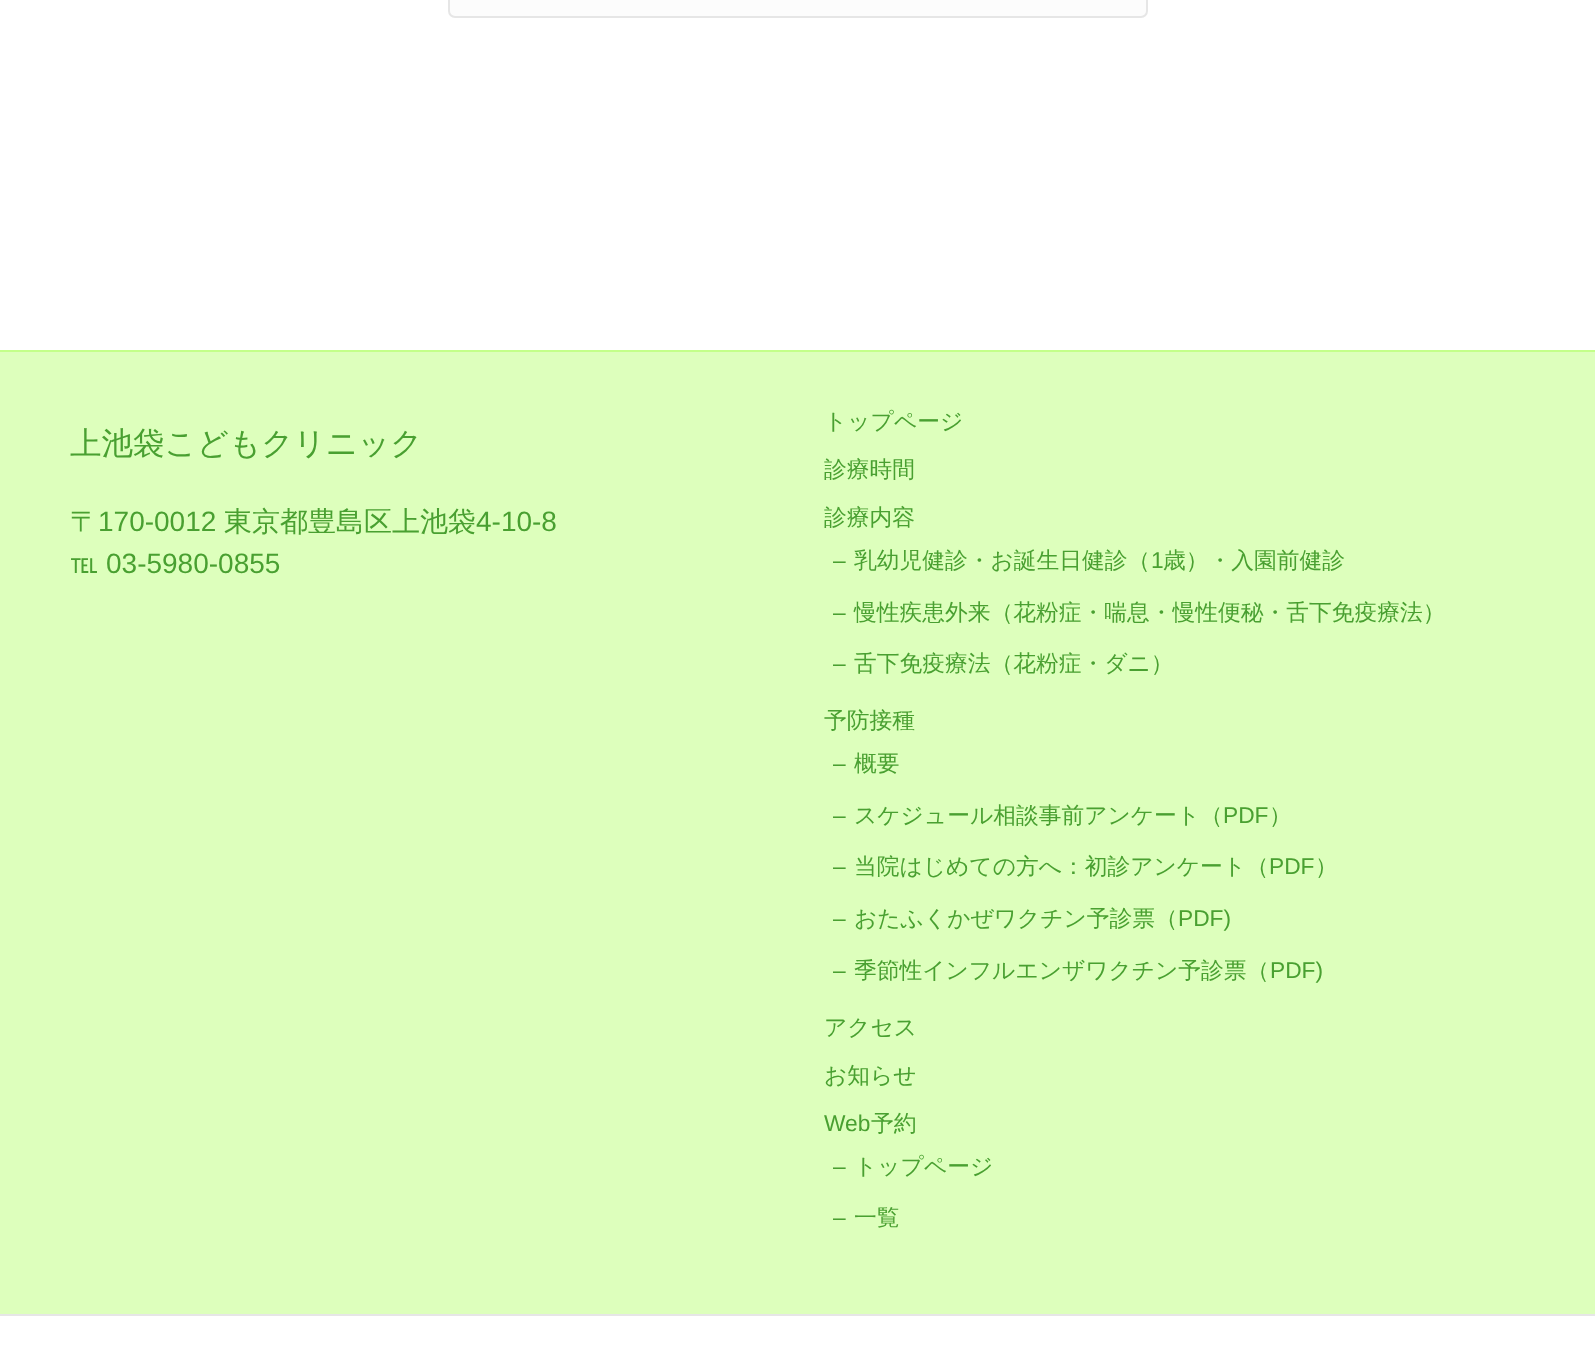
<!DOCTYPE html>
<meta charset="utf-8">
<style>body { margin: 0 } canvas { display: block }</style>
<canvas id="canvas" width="1595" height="1365"></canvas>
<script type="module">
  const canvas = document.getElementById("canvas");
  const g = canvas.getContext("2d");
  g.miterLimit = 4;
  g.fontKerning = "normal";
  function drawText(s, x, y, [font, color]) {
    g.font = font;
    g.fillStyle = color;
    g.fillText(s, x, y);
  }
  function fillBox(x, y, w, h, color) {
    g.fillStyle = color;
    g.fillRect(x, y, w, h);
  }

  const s1 = ["500 31.5px WenQuanYi Zen Hei", "#49A031"];
  const s2 = ["500 28px WenQuanYi Zen Hei", "#49A031"];
  const s3 = ["28px Liberation Sans", "#49A031"];
  const s4 = ["500 22.75px WenQuanYi Zen Hei", "#49A031"];
  const s5 = ["22.75px Liberation Sans", "#49A031"];

  fillBox(0, 0, 1595, 1365, "#FFFFFF");
  g.fillStyle = "#FCFCFC";
  g.beginPath();
  g.roundRect(449, -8, 698, 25, 6);
  g.fill();
  g.strokeStyle = "#E6E6E6";
  g.lineWidth = 2;
  g.stroke();
  fillBox(0, 352, 1595, 962, "#DDFFBC");
  fillBox(0, 350, 1595, 2, "#C3FF89");
  drawText("上池袋こどもクリニック", 70, 454, s1);
  drawText("〒", 70, 531, s2);
  drawText("170-0012", 98, 531, s3);
  drawText("東京都豊島区上池袋", 224, 531, s2);
  drawText("4-10-8", 476, 531, s3);
  drawText("℡", 70, 573, s2);
  drawText("03-5980-0855", 106, 573, s3);
  drawText("トップページ", 824, 429, s4);
  drawText("診療時間", 824, 477, s4);
  drawText("診療内容", 824, 525, s4);
  drawText("–", 833, 568, s5);
  drawText("乳幼児健診・お誕生日健診（", 854, 568, s4);
  drawText("1", 1151, 568, s5);
  drawText("歳）・入園前健診", 1163, 568, s4);
  drawText("–", 833, 620, s5);
  drawText("慢性疾患外来（花粉症・喘息・慢性便秘・舌下免疫療法）", 854, 620, s4);
  drawText("–", 833, 671, s5);
  drawText("舌下免疫療法（花粉症・ダニ）", 854, 671, s4);
  drawText("予防接種", 824, 728, s4);
  drawText("–", 833, 771, s5);
  drawText("概要", 854, 771, s4);
  drawText("–", 833, 823, s5);
  drawText("スケジュール相談事前アンケート（", 854, 823, s4);
  drawText("PDF", 1223, 823, s5);
  drawText("）", 1269, 823, s4);
  drawText("–", 833, 874, s5);
  drawText("当院はじめての方へ：初診アンケート（", 854, 874, s4);
  drawText("PDF", 1269, 874, s5);
  drawText("）", 1315, 874, s4);
  drawText("–", 833, 926, s5);
  drawText("おたふくかぜワクチン予診票（", 854, 926, s4);
  drawText("PDF)", 1178, 926, s5);
  drawText("–", 833, 978, s5);
  drawText("季節性インフルエンザワクチン予診票（", 854, 978, s4);
  drawText("PDF)", 1270, 978, s5);
  drawText("アクセス", 824, 1035, s4);
  drawText("お知らせ", 824, 1083, s4);
  drawText("Web", 824, 1131, s5);
  drawText("予約", 871, 1131, s4);
  drawText("–", 833, 1174, s5);
  drawText("トップページ", 854, 1174, s4);
  drawText("–", 833, 1225, s5);
  drawText("一覧", 854, 1225, s4);
  fillBox(0, 1314, 1595, 2, "#E6E6E6");
</script>
